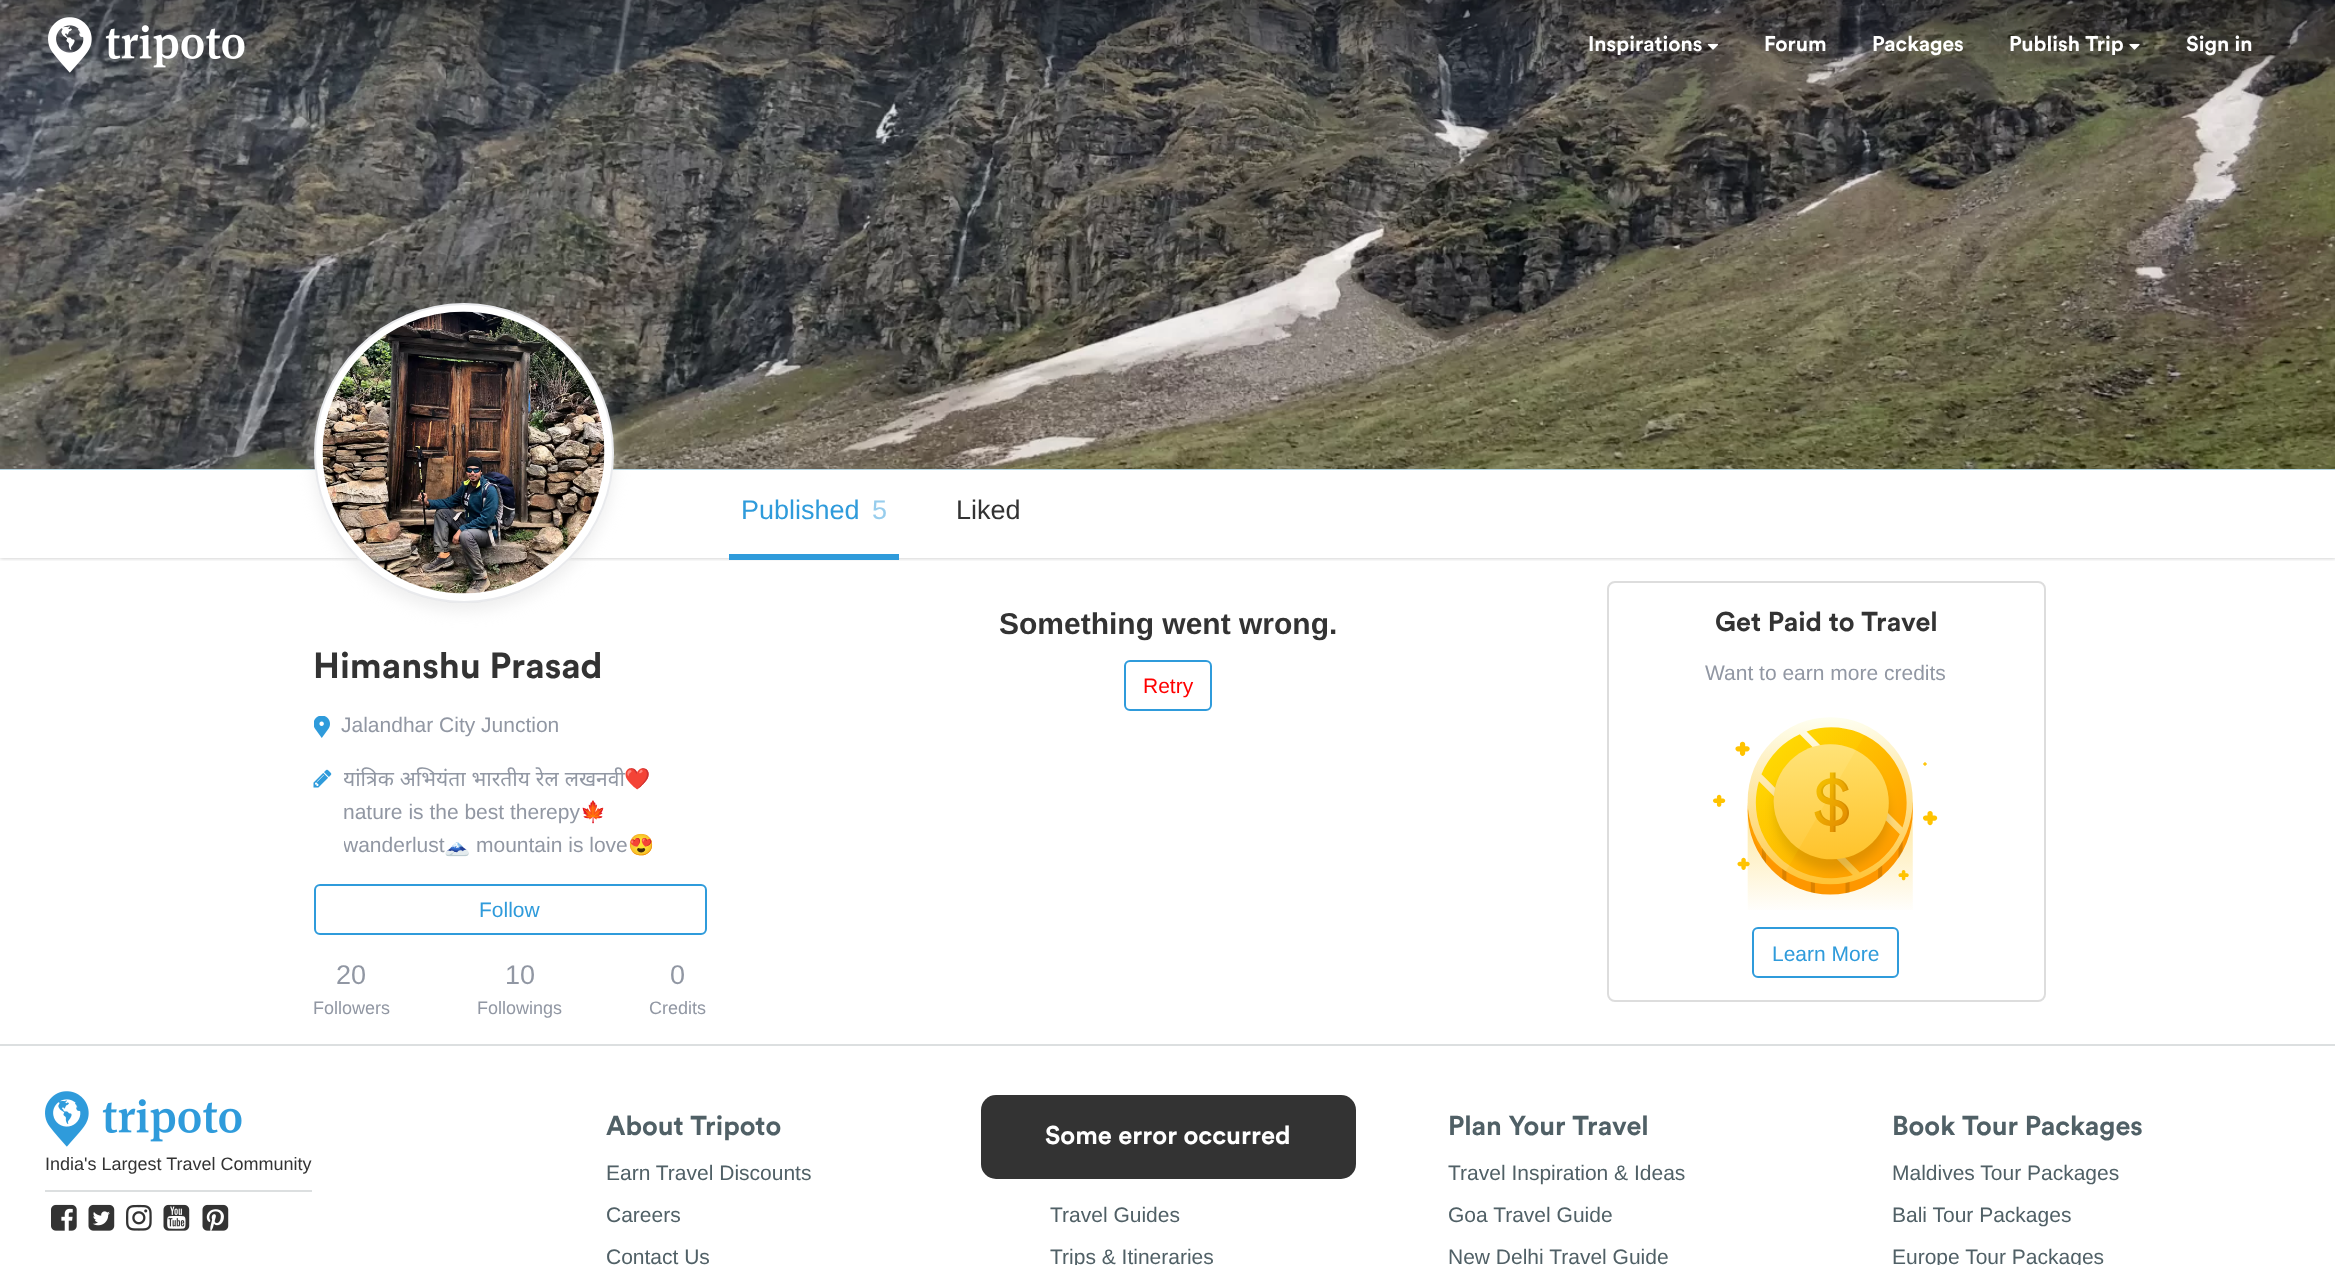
<!DOCTYPE html>
<meta charset="utf-8">
<style>body { margin: 0 } canvas { display: block }</style>
<canvas id="canvas" width="2335" height="1265"></canvas>
<script type="module">
  const canvas = document.getElementById("canvas");
  const g = canvas.getContext("2d");
  g.miterLimit = 4;
  g.fontKerning = "normal";
  function drawText(s, x, y, [font, color]) {
    g.font = font;
    g.fillStyle = color;
    g.fillText(s, x, y);
  }
  function fillBox(x, y, w, h, color) {
    g.fillStyle = color;
    g.fillRect(x, y, w, h);
  }
  function fillRounded(x, y, w, h, r, color) {
    g.fillStyle = color;
    g.beginPath();
    g.roundRect(x, y, w, h, r);
    g.fill();
  }
  async function drawPicture(src, x, y, w, h) {
    const img = new Image();
    img.src = src;
    await img.decode();
    g.drawImage(img, x, y, w, h);
  }

  const s1 = ["bold 21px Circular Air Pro", "#FFFFFF"];
  const s2 = ["27px Liberation Sans", "#2F9BDB"];
  const s3 = ["27px Liberation Sans", "#97CDED"];
  const s4 = ["27px Liberation Sans", "#333333"];
  const s5 = ["bold 36px Circular Air Pro", "#333333"];
  const s6 = ["21px Liberation Sans", "#9197A3"];
  const s7 = ["21px Noto Sans", "#9197A3"];
  const s8 = ["21px Noto Color Emoji", "#9197A3"];
  const s9 = ["21px Liberation Sans", "#2F9BDB"];
  const s10 = ["27px Liberation Sans", "#9197A3"];
  const s11 = ["18px Liberation Sans", "#9197A3"];
  const s12 = ["bold 30px Liberation Sans", "#333333"];
  const s13 = ["21px Liberation Sans", "#FF0000"];
  const s14 = ["bold 27px Circular Air Pro", "#333333"];
  const s15 = ["18px Liberation Sans", "#333333"];
  const s16 = ["bold 27px Circular Air Pro", "#506066"];
  const s17 = ["21px Liberation Sans", "#506066"];
  const s18 = ["bold 25.5px Circular Air Pro", "#FFFFFF"];

  fillBox(0, 0, 2335, 1265, "#FFFFFF");
  g.save();
  g.beginPath();
  g.rect(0, 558, 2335, 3);
  g.clip();
  g.fillStyle = "rgba(0, 0, 0, 0.25)";
  g.filter = "blur(2px)";
  g.beginPath();
  g.rect(0, 470, 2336, 88);
  g.fill();
  g.filter = "none";
  g.restore();
  await drawPicture("pic4.png", 0, 0, 2335, 469);
  await drawPicture("pic1.png", 48, 17, 197, 56);
  drawText("Inspirations", 1588, 51, s1);
  await drawPicture("pic2.png", 1707, 43, 12, 7);
  drawText("Forum", 1764, 51, s1);
  drawText("Packages", 1872, 51, s1);
  drawText("Publish Trip", 2009, 51, s1);
  await drawPicture("pic3.png", 2129, 43, 11, 7);
  drawText("Sign in", 2186, 51, s1);
  fillBox(0, 469, 2335, 1, "#B0D2DF");
  fillBox(729, 554, 170, 6, "#2F9BDB");
  drawText("Published", 741, 519, s2);
  drawText("5", 872, 519, s3);
  drawText("Liked", 956, 519, s4);
  g.fillStyle = "rgba(221, 221, 221, 0.5)";
  g.filter = "blur(7.5px)";
  g.beginPath();
  g.roundRect(314, 311, 300, 300, 150);
  g.fill();
  g.filter = "none";
  g.fillStyle = "#FFFFFF";
  g.beginPath();
  g.arc(464, 453, 150, 0, Math.PI * 2);
  g.fill();
  g.beginPath();
  g.arc(464, 453, 149, 0, Math.PI * 2);
  g.strokeStyle = "rgba(145, 151, 163, 0.2)";
  g.lineWidth = 2;
  g.stroke();
  await drawPicture("pic5.png", 322, 311, 283, 283);
  drawText("Himanshu Prasad", 313, 678, s5);
  await drawPicture("pic6.png", 314, 716, 16, 22);
  drawText("Jalandhar City Junction", 341, 732, s6);
  await drawPicture("pic7.png", 313, 769, 19, 19);
  g.save();
  g.beginPath();
  g.rect(344, 762, 363, 99);
  g.clip();
  g.wordSpacing = "0.5px";
  drawText("यांत्रिक अभियंता भारतीय रेल लखनवी", 343, 786, s7);
  g.restore();
  drawText("❤️", 624, 786, s8);
  drawText("nature is the best therepy", 343, 819, s6);
  drawText("🍁", 580, 819, s8);
  g.save();
  g.beginPath();
  g.rect(344, 762, 363, 99);
  g.clip();
  drawText("wanderlust", 343, 852, s6);
  g.restore();
  drawText("🗻", 444, 852, s8);
  drawText("mountain is love", 476, 852, s6);
  drawText("😍", 628, 852, s8);
  g.beginPath();
  g.roundRect(315, 885, 391, 49, 5);
  g.strokeStyle = "#2F9BDB";
  g.stroke();
  drawText("Follow", 479, 917, s9);
  drawText("20", 336, 984, s10);
  drawText("Followers", 313, 1014, s11);
  drawText("10", 505, 984, s10);
  drawText("Followings", 477, 1014, s11);
  drawText("0", 670, 984, s10);
  drawText("Credits", 649, 1014, s11);
  drawText("Something went wrong.", 999, 634, s12);
  g.beginPath();
  g.roundRect(1125, 661, 86, 49, 5);
  g.stroke();
  drawText("Retry", 1143, 693, s13);
  g.beginPath();
  g.roundRect(1608, 582, 437, 419, 7);
  g.strokeStyle = "#DDDDDD";
  g.stroke();
  drawText("Get Paid to Travel", 1715, 631, s14);
  drawText("Want to earn more credits", 1705, 680, s6);
  await drawPicture("pic8.png", 1713, 717, 225, 193);
  g.beginPath();
  g.roundRect(1753, 928, 145, 49, 5);
  g.strokeStyle = "#2F9BDB";
  g.stroke();
  drawText("Learn More", 1772, 961, s9);
  fillBox(0, 1044, 2335, 2, "#DCDFE0");
  await drawPicture("pic9.png", 45, 1091, 197, 56);
  fillBox(45, 1190, 267, 2, "#DCDFE0");
  drawText("India's Largest Travel Community", 45, 1170, s15);
  await drawPicture("pic10.png", 51, 1204, 26, 27);
  await drawPicture("pic11.png", 88, 1204, 27, 27);
  await drawPicture("pic12.png", 126, 1204, 26, 27);
  await drawPicture("pic13.png", 163, 1204, 27, 27);
  await drawPicture("pic14.png", 202, 1204, 27, 27);
  drawText("About Tripoto", 606, 1135, s16);
  drawText("Earn Travel Discounts", 606, 1180, s17);
  drawText("Careers", 606, 1222, s17);
  drawText("Contact Us", 606, 1264, s17);
  drawText("Travel Guides", 1050, 1222, s17);
  drawText("Trips & Itineraries", 1050, 1264, s17);
  drawText("Plan Your Travel", 1448, 1135, s16);
  drawText("Travel Inspiration & Ideas", 1448, 1180, s17);
  drawText("Goa Travel Guide", 1448, 1222, s17);
  drawText("New Delhi Travel Guide", 1448, 1264, s17);
  drawText("Book Tour Packages", 1892, 1135, s16);
  drawText("Maldives Tour Packages", 1892, 1180, s17);
  drawText("Bali Tour Packages", 1892, 1222, s17);
  drawText("Europe Tour Packages", 1892, 1264, s17);
  fillRounded(981, 1095, 375, 84, 15, "#333333");
  drawText("Some error occurred", 1045, 1144, s18);
</script>
